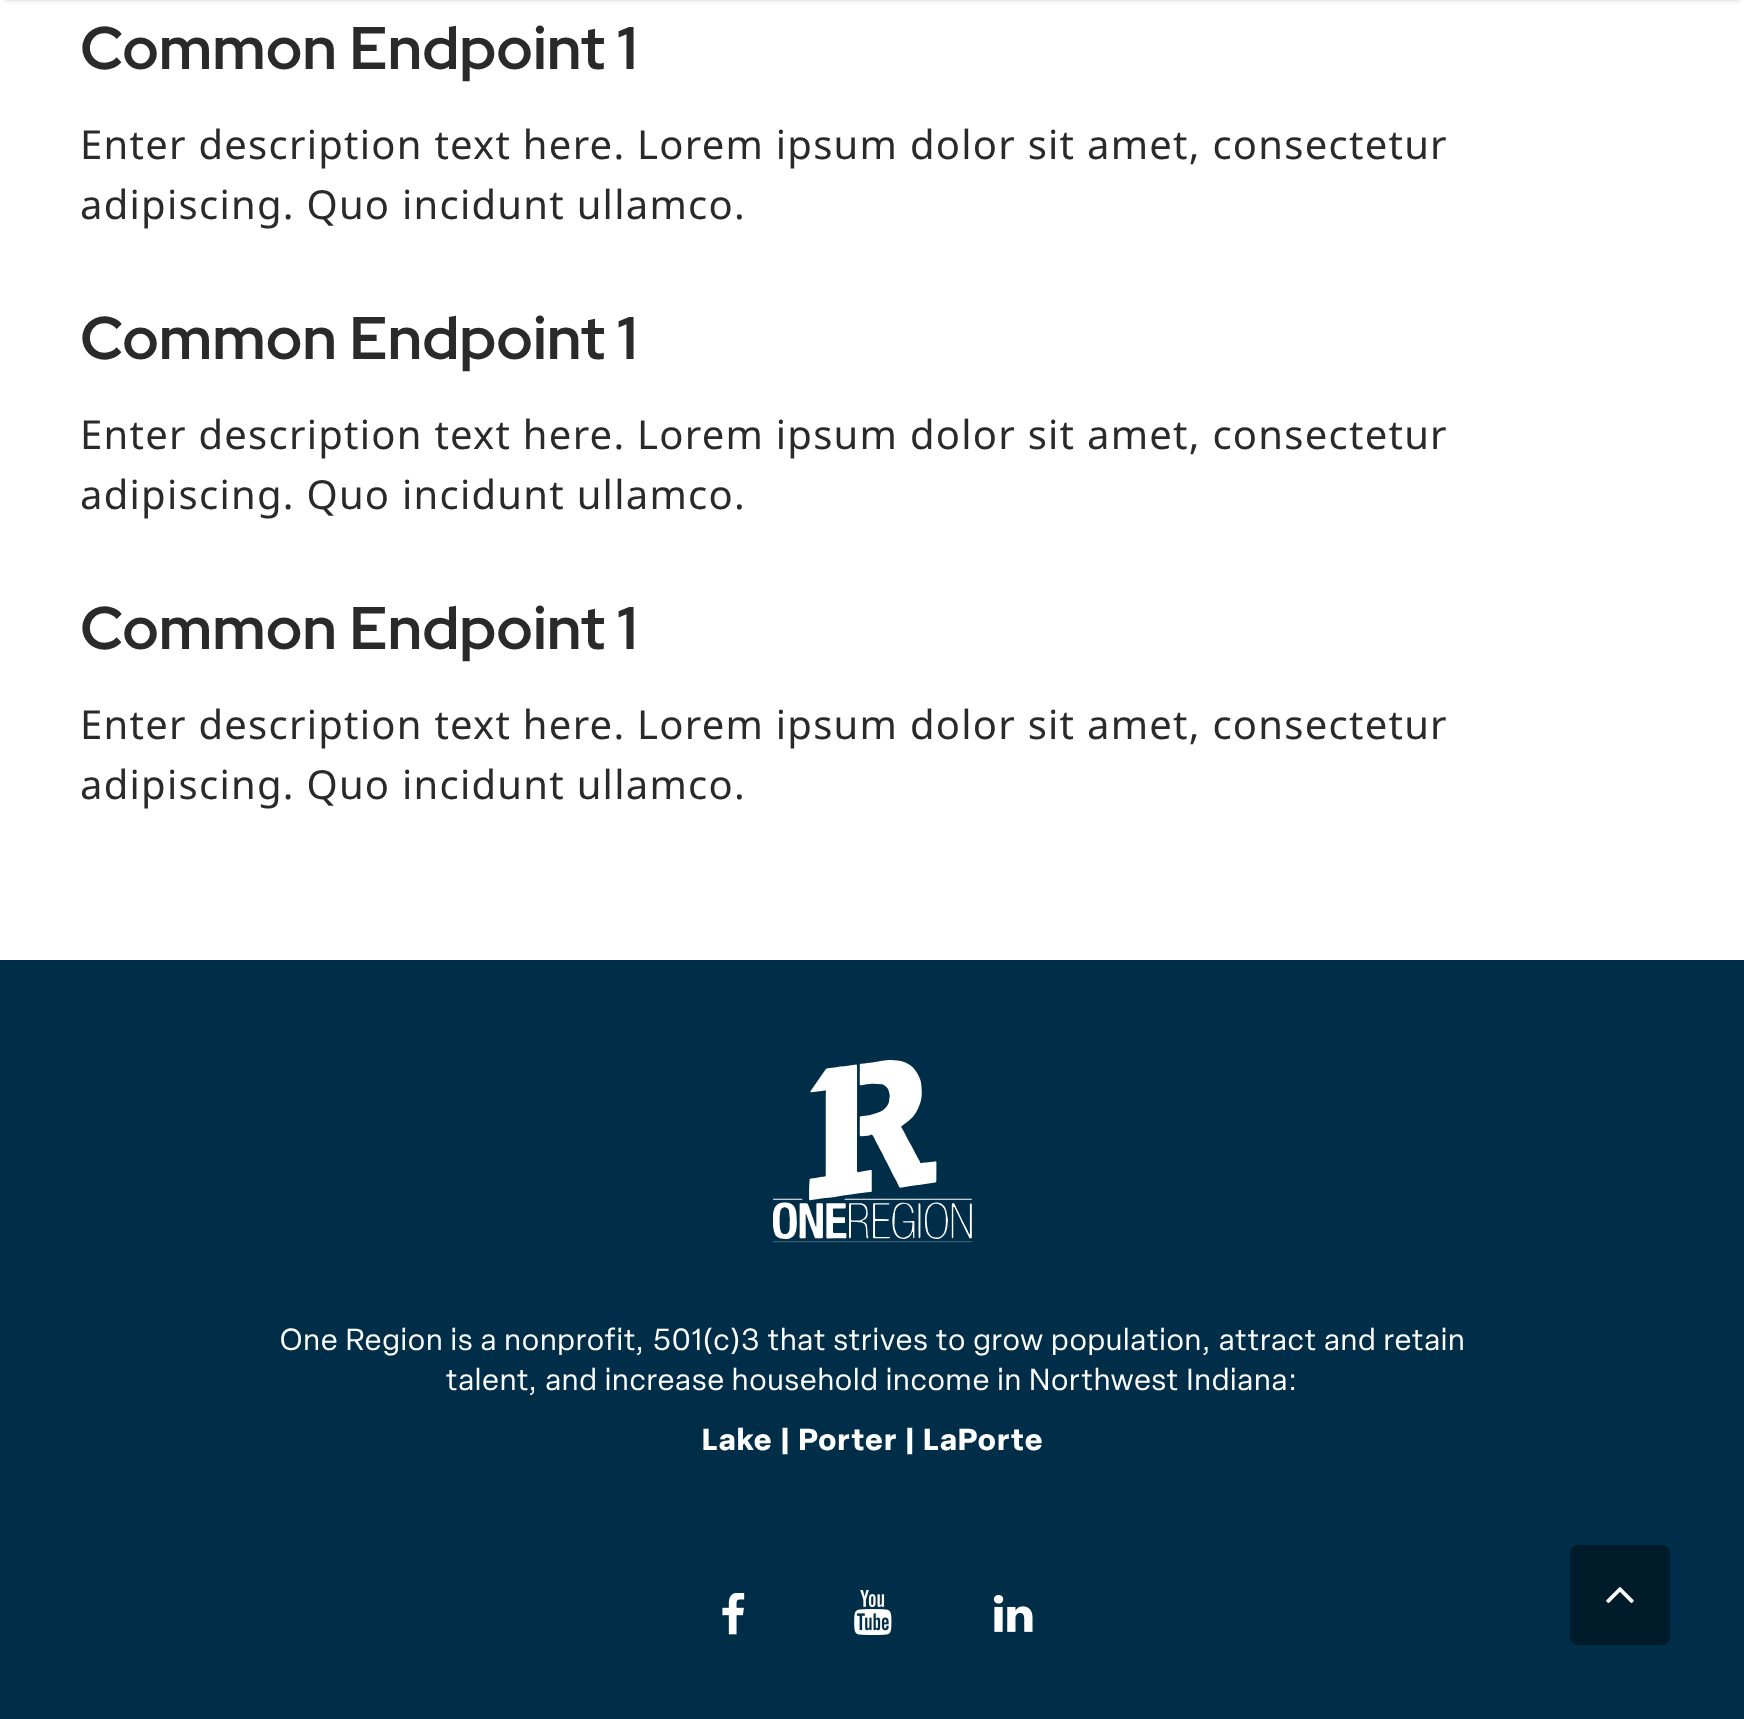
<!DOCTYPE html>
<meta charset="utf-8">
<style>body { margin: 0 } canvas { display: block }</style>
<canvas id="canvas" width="1744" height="1719"></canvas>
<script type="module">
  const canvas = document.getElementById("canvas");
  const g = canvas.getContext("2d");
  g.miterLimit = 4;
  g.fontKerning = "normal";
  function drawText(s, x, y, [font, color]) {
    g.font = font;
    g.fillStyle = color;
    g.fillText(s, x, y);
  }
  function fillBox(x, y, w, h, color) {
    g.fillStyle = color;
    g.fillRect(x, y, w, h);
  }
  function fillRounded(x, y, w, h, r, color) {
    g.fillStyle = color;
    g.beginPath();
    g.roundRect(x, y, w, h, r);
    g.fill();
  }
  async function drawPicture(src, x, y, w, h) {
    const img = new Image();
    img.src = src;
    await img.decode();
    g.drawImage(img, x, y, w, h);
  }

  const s1 = ["bold 60px Red Hat Display", "#2A2A2A"];
  const s2 = ["40px Noto Sans", "#2A2A2A"];
  const s3 = ["30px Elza", "#FFFFFF"];
  const s4 = ["bold 30px Elza", "#FFFFFF"];

  fillBox(0, 0, 1744, 1719, "#FFFFFF");
  g.fillStyle = "rgba(0, 0, 0, 0.2)";
  g.filter = "blur(2.5px)";
  g.beginPath();
  g.rect(5, -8, 1735, 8);
  g.fill();
  g.filter = "none";
  drawText("Common Endpoint 1", 80, 69, s1);
  g.letterSpacing = "1.25px";
  drawText("Enter description text here. Lorem ipsum dolor sit amet, consectetur", 80, 159, s2);
  drawText("adipiscing. Quo incidunt ullamco.", 80, 219, s2);
  g.letterSpacing = "0px";
  drawText("Common Endpoint 1", 80, 359, s1);
  g.letterSpacing = "1.25px";
  drawText("Enter description text here. Lorem ipsum dolor sit amet, consectetur", 80, 449, s2);
  drawText("adipiscing. Quo incidunt ullamco.", 80, 509, s2);
  g.letterSpacing = "0px";
  drawText("Common Endpoint 1", 80, 649, s1);
  g.letterSpacing = "1.25px";
  drawText("Enter description text here. Lorem ipsum dolor sit amet, consectetur", 80, 739, s2);
  drawText("adipiscing. Quo incidunt ullamco.", 80, 799, s2);
  fillBox(0, 960, 1744, 759, "#002E48");
  await drawPicture("pic1.png", 773, 1060, 199, 183);
  drawText("One Region is a nonprofit, 501(c)3 that strives to grow population, attract and retain", 280, 1350, s3);
  drawText("talent, and increase household income in Northwest Indiana:", 446, 1390, s3);
  drawText("Lake | Porter | LaPorte", 702, 1450, s4);
  await drawPicture("pic2.png", 722, 1593, 23, 42);
  await drawPicture("pic3.png", 854, 1590, 38, 45);
  await drawPicture("pic4.png", 993, 1595, 40, 37);
  fillRounded(1570, 1545, 100, 100, 8, "#001C2B");
  await drawPicture("pic5.png", 1606, 1587, 28, 16);
</script>
